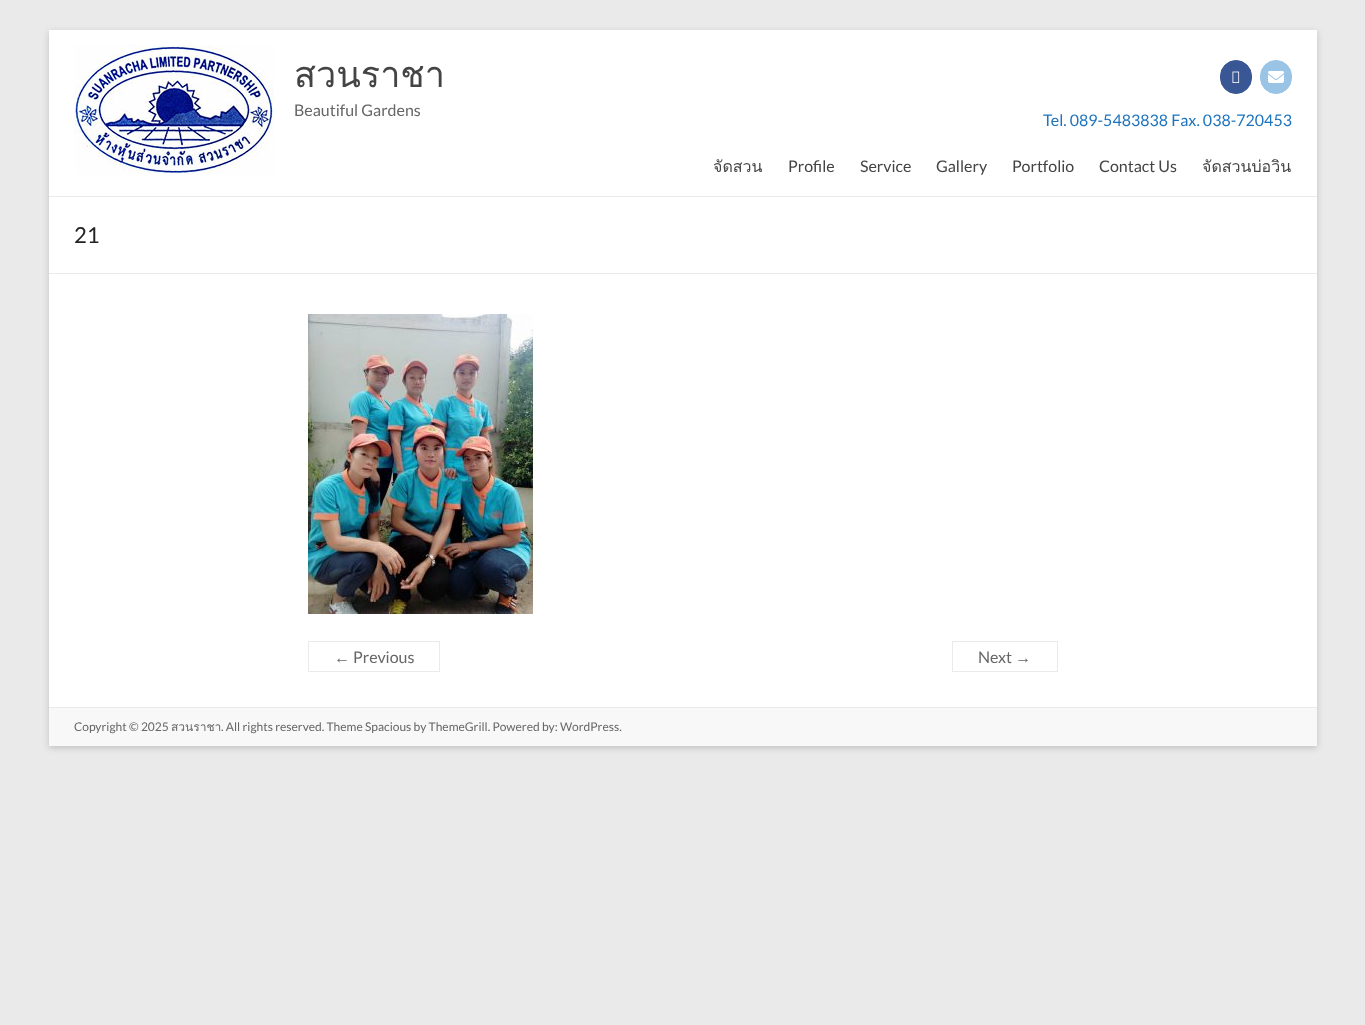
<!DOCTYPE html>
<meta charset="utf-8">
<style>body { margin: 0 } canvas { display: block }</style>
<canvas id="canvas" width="1365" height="1025"></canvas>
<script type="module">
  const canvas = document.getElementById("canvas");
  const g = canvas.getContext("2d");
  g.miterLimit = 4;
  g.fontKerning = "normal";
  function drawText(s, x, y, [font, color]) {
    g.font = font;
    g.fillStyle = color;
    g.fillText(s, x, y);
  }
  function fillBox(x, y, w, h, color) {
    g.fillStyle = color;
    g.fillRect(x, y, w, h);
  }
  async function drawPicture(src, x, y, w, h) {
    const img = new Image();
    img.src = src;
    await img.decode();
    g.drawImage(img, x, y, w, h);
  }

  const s1 = ["36px Loma", "#444444"];
  const s2 = ["16px Lato", "#666666"];
  const s3 = ["16px Lato", "#1E73BE"];
  const s4 = ["16px Loma", "#444444"];
  const s5 = ["16px Lato", "#444444"];
  const s6 = ["22px Lato", "#222222"];
  const s7 = ["16px Liberation Sans", "#666666"];
  const s8 = ["12px Lato", "#666666"];
  const s9 = ["12px Loma", "#666666"];

  fillBox(0, 0, 1365, 1025, "#EAEAEA");
  g.fillStyle = "rgba(100, 100, 100, 0.3)";
  g.filter = "blur(3px)";
  g.beginPath();
  g.rect(49, 32, 1268, 716);
  g.fill();
  g.filter = "none";
  fillBox(49, 30, 1268, 677, "#FFFFFF");
  fillBox(49, 196, 1268, 1, "#EAEAEA");
  await drawPicture("pic1.png", 74, 45, 200, 130);
  drawText("สวนราชา", 294, 87, s1);
  drawText("Beautiful Gardens", 294, 116, s2);
  g.fillStyle = "#3A5795";
  g.beginPath();
  g.roundRect(1220.5, 60.5, 31, 33, 15.5);
  g.fill();
  g.strokeStyle = "#3A5795";
  g.stroke();
  await drawPicture("pic2.png", 1232, 71, 8, 12);
  g.fillStyle = "#99C4E6";
  g.beginPath();
  g.roundRect(1260.5, 60.5, 31, 33, 15.5);
  g.fill();
  g.strokeStyle = "#99C4E6";
  g.stroke();
  await drawPicture("pic3.png", 1268, 71, 16, 12);
  drawText("Tel. 089-5483838 Fax. 038-720453", 1043, 126, s3);
  drawText("จัดสวน", 713, 172, s4);
  drawText("Profile", 788, 172, s5);
  drawText("Service", 860, 172, s5);
  drawText("Gallery", 936, 172, s5);
  drawText("Portfolio", 1012, 172, s5);
  drawText("Contact Us", 1099, 172, s5);
  drawText("จัดสวนบ่อวิน", 1202, 172, s4);
  fillBox(49, 273, 1268, 1, "#EAEAEA");
  drawText("21", 74, 243, s6);
  await drawPicture("pic4.png", 308, 314, 225, 300);
  g.strokeStyle = "#EAEAEA";
  g.strokeRect(308.5, 641.5, 131, 30);
  drawText("←", 334, 663, s7);
  drawText("Previous", 353, 663, s2);
  g.strokeRect(952.5, 641.5, 105, 30);
  drawText("Next", 978, 663, s2);
  drawText("→", 1015, 663, s7);
  fillBox(49, 708, 1268, 38, "#F8F8F8");
  fillBox(49, 707, 1268, 1, "#EAEAEA");
  drawText("Copyright © 2025", 74, 731, s8);
  drawText("สวนราชา", 171, 731, s9);
  drawText(". All rights reserved. Theme Spacious by ThemeGrill. Powered by: WordPress.", 221, 731, s8);
</script>
